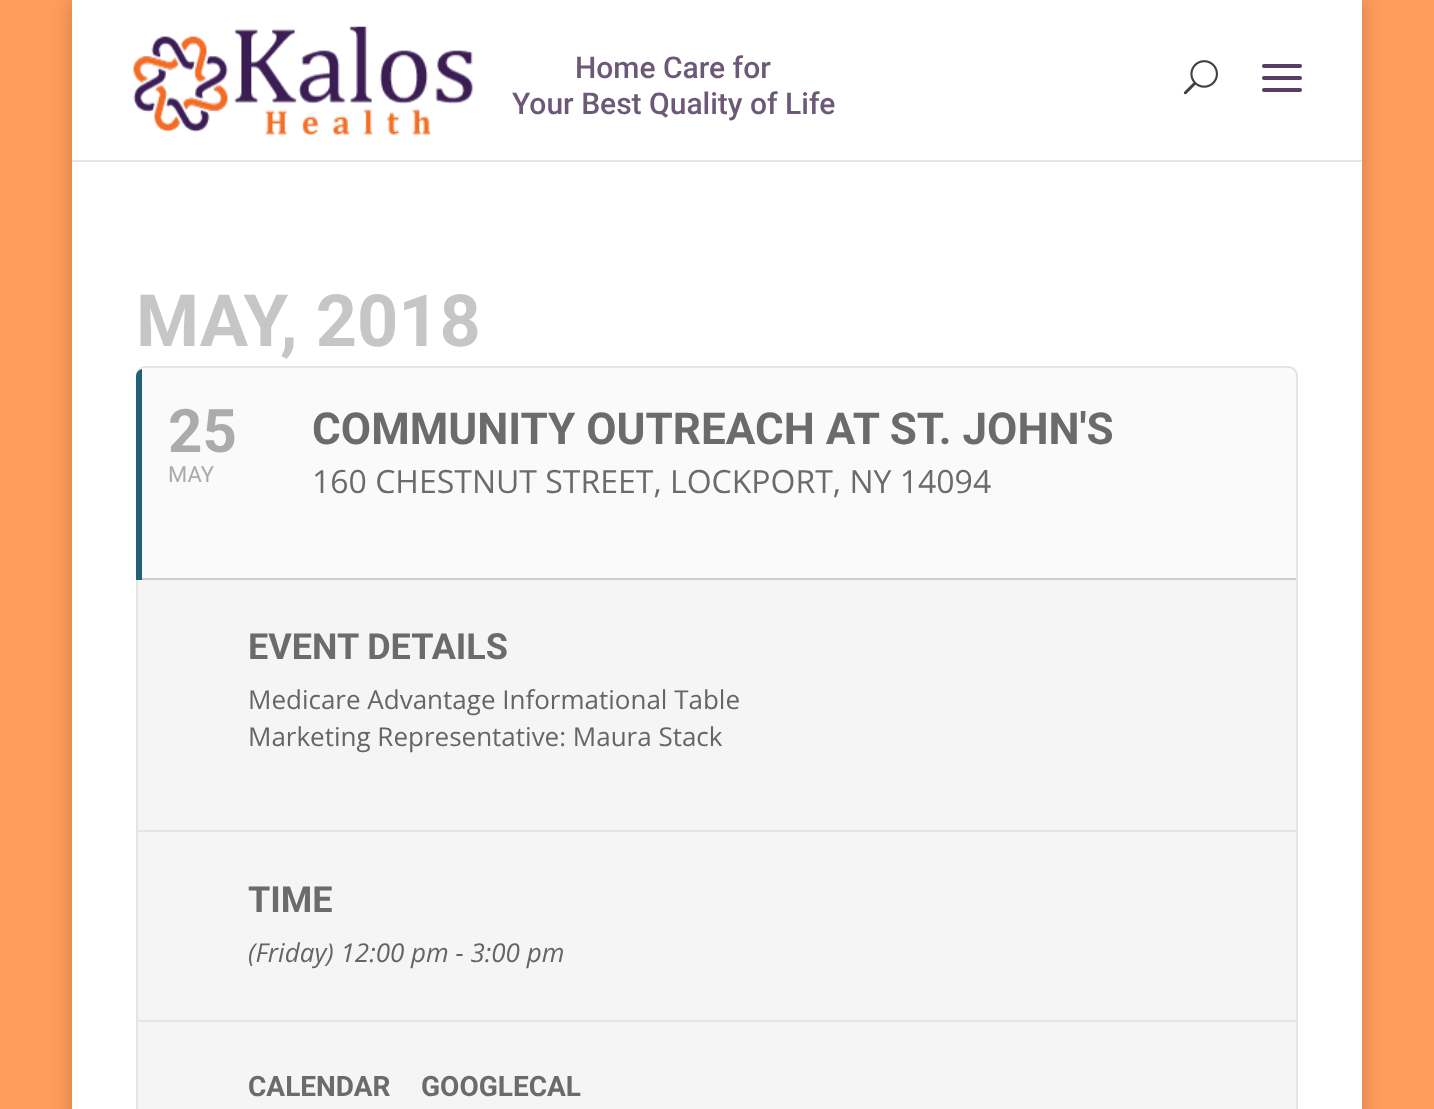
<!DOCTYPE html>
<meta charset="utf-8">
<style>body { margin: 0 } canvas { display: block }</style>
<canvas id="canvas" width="1434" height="1109"></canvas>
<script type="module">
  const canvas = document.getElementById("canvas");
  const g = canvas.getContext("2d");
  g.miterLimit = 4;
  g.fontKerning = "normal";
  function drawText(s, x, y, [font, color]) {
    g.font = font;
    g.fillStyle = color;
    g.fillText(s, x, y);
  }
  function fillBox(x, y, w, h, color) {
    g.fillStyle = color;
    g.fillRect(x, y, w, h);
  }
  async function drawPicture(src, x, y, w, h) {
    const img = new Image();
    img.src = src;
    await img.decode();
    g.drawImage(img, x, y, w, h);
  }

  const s1 = ["500 30px Roboto", "#6D5878"];
  const s2 = ["bold 72px Roboto", "#C6C6C6"];
  const s3 = ["bold 60px Roboto", "#ABABAB"];
  const s4 = ["22px Roboto", "#ABABAB"];
  const s5 = ["bold 44px Roboto", "#6B6B6B"];
  const s6 = ["32px Open Sans", "#6B6B6B"];
  const s7 = ["bold 36px Roboto", "#6B6B6B"];
  const s8 = ["26px Open Sans", "#656565"];
  const s9 = ["italic 26px Open Sans", "#656565"];
  const s10 = ["bold 28px Roboto", "#6B6B6B"];

  fillBox(0, 0, 1434, 1109, "#FF9D5C");
  g.fillStyle = "rgba(0, 0, 0, 0.2)";
  g.filter = "blur(10px)";
  g.beginPath();
  g.rect(72, 0, 1290, 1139);
  g.fill();
  g.filter = "none";
  fillBox(72, 160, 1290, 2, "#E6E6E6");
  fillBox(72, 0, 1290, 160, "#FFFFFF");
  await drawPicture("pic1.png", 133, 26, 340, 109);
  drawText("Home Care for", 575, 78, s1);
  drawText("Your Best Quality of Life", 512, 114, s1);
  await drawPicture("pic2.png", 1183, 60, 35, 35);
  await drawPicture("pic3.png", 1262, 64, 40, 28);
  fillBox(72, 162, 1290, 947, "#FFFFFF");
  drawText("MAY, 2018", 136, 346, s2);
  g.fillStyle = "#E5E5E5";
  g.beginPath();
  g.moveTo(146, 366);
  g.lineTo(1288, 366);
  g.bezierCurveTo(1294, 366, 1298, 370, 1298, 376);
  g.lineTo(1298, 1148);
  g.bezierCurveTo(1298, 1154, 1294, 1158, 1288, 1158);
  g.lineTo(146, 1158);
  g.bezierCurveTo(140, 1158, 136, 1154, 136, 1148);
  g.lineTo(136, 376);
  g.bezierCurveTo(136, 370, 140, 366, 146, 366);
  g.closePath();
  g.moveTo(146, 368);
  g.lineTo(1288, 368);
  g.bezierCurveTo(1292, 368, 1296, 372, 1296, 376);
  g.lineTo(1296, 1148);
  g.bezierCurveTo(1296, 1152, 1292, 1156, 1288, 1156);
  g.lineTo(146, 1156);
  g.bezierCurveTo(140, 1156, 136, 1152, 136, 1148);
  g.lineTo(136, 376);
  g.bezierCurveTo(136, 372, 140, 368, 146, 368);
  g.closePath();
  g.fill("evenodd");
  g.fillStyle = "#FAFAFA";
  g.beginPath();
  g.moveTo(146, 368);
  g.bezierCurveTo(140, 368, 136, 372, 136, 376);
  g.lineTo(136, 580);
  g.lineTo(1296, 580);
  g.lineTo(1296, 376);
  g.bezierCurveTo(1296, 372, 1292, 368, 1288, 368);
  g.closePath();
  g.fill();
  g.fillStyle = "#206177";
  g.beginPath();
  g.moveTo(136, 376);
  g.lineTo(136, 580);
  g.lineTo(142, 580);
  g.lineTo(142, 369);
  g.bezierCurveTo(138, 370, 136, 373, 136, 376);
  g.closePath();
  g.fill();
  drawText("25", 168, 452, s3);
  drawText("MAY", 168, 482, s4);
  drawText("COMMUNITY OUTREACH AT ST. JOHN'S", 312, 444, s5);
  drawText("160 CHESTNUT STREET, LOCKPORT, NY 14094", 312, 493, s6);
  fillBox(142, 578, 1154, 2, "#CDCDCD");
  g.fillStyle = "#F5F5F5";
  g.beginPath();
  g.moveTo(136, 580);
  g.lineTo(136, 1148);
  g.bezierCurveTo(136, 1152, 140, 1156, 146, 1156);
  g.lineTo(1288, 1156);
  g.bezierCurveTo(1292, 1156, 1296, 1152, 1296, 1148);
  g.lineTo(1296, 580);
  g.closePath();
  g.fill();
  g.fillStyle = "#E5E5E5";
  g.beginPath();
  g.moveTo(136, 580);
  g.lineTo(136, 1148);
  g.bezierCurveTo(136, 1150, 137, 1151, 138, 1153);
  g.lineTo(138, 580);
  g.closePath();
  g.fill();
  fillBox(138, 830, 1158, 2, "#E5E5E5");
  drawText("EVENT DETAILS", 248, 659, s7);
  drawText("Medicare Advantage Informational Table", 248, 709, s8);
  drawText("Marketing Representative: Maura Stack", 248, 746, s8);
  fillBox(138, 1020, 1158, 2, "#E5E5E5");
  drawText("TIME", 248, 912, s7);
  drawText("(Friday) 12:00 pm - 3:00 pm", 248, 962, s9);
  drawText("CALENDAR", 248, 1096, s10);
  drawText("GOOGLECAL", 421, 1096, s10);
</script>
